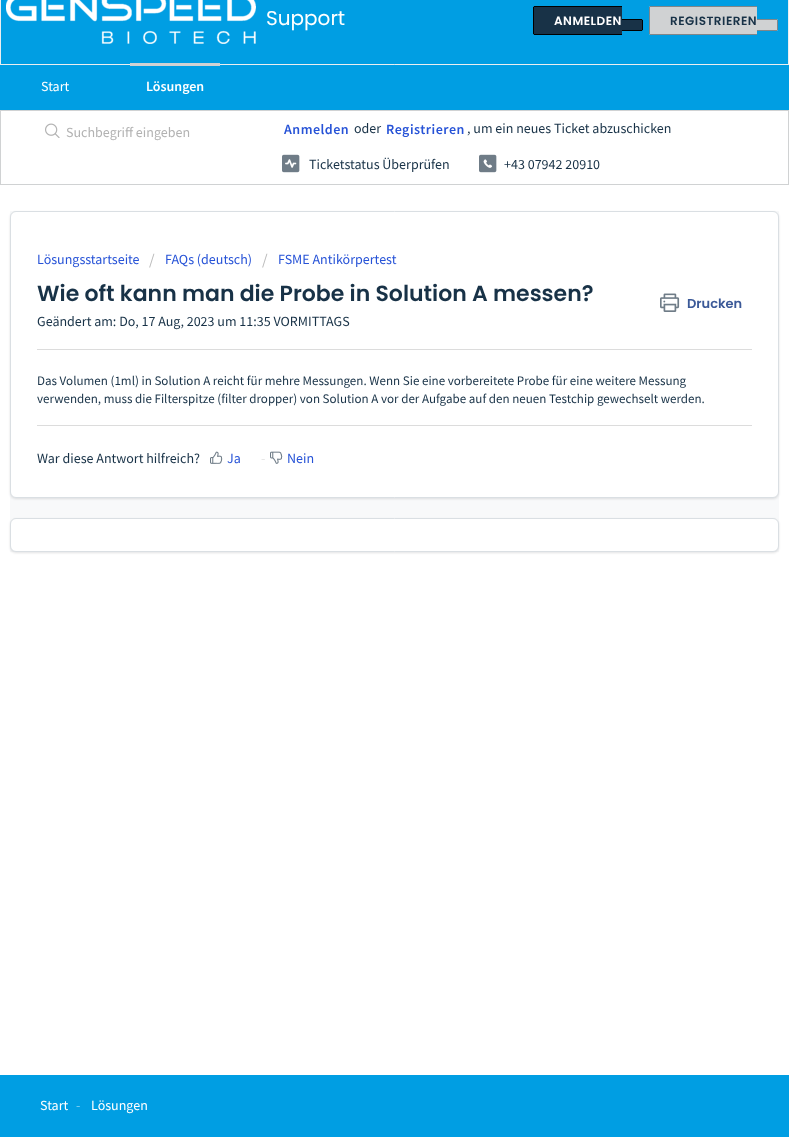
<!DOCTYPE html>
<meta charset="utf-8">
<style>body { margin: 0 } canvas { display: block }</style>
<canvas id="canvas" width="789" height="1141"></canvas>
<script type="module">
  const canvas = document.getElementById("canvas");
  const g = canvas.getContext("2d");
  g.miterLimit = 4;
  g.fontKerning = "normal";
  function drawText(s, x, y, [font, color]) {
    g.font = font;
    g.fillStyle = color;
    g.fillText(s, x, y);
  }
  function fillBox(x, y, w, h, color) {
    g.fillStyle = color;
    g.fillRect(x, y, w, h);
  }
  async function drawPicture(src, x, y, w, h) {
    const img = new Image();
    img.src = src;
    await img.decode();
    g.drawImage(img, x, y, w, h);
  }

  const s1 = ["20px Poppins", "#FFFFFF"];
  const s2 = ["600 12px Poppins", "#FFFFFF"];
  const s3 = ["600 12px Poppins", "#183247"];
  const s4 = ["14px Source Sans Pro", "#FFFFFF"];
  const s5 = ["600 14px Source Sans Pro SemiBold", "#FFFFFF"];
  const s6 = ["14px Source Sans Pro", "#B2B2B2"];
  const s7 = ["600 14px Source Sans Pro SemiBold", "#2753D7"];
  const s8 = ["14px Source Sans Pro", "#183247"];
  const s9 = ["14px Source Sans Pro", "#2753D7"];
  const s10 = ["16px Source Sans Pro", "#BBBBBB"];
  const s11 = ["600 22px Poppins", "#183247"];
  const s12 = ["600 13px Poppins", "#3B5998"];
  const s13 = ["13px Source Sans Pro", "#183247"];
  const s14 = ["14px Source Sans Pro", "#E5E5E5"];
  const s15 = ["14px Source Sans Pro", "#80CFF1"];

  fillBox(0, 0, 789, 1141, "#FFFFFF");
  g.fillStyle = "#009EE3";
  g.beginPath();
  g.rect(0.5, -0.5, 788, 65);
  g.fill();
  g.strokeStyle = "#EBEEF0";
  g.stroke();
  await drawPicture("pic1.png", 6, 0, 250, 44);
  drawText("Support", 266, 25, s1);
  g.fillStyle = "#183247";
  g.beginPath();
  g.roundRect(533, 6, 89, 29, [2, 0, 0, 2]);
  g.fill();
  g.letterSpacing = "0.5px";
  drawText("ANMELDEN", 554, 25, s2);
  fillBox(534, 6, 88, 1, "#000000");
  fillBox(534, 34, 88, 1, "#000000");
  fillBox(533, 7, 1, 27, "#000000");
  g.fillStyle = "#183247";
  g.beginPath();
  g.roundRect(622, 19, 21, 12, [0, 2, 2, 0]);
  g.fill();
  fillBox(622, 19, 20, 1, "#000000");
  fillBox(642, 20, 1, 10, "#000000");
  fillBox(622, 30, 20, 1, "#000000");
  g.fillStyle = "#D0D2D3";
  g.beginPath();
  g.roundRect(649, 6, 108, 29, [2, 0, 0, 2]);
  g.fill();
  drawText("REGISTRIEREN", 670, 25, s3);
  fillBox(650, 6, 107, 1, "#818689");
  fillBox(650, 34, 107, 1, "#818689");
  fillBox(649, 7, 1, 27, "#818689");
  g.fillStyle = "#D0D2D3";
  g.beginPath();
  g.roundRect(757, 19, 21, 12, [0, 2, 2, 0]);
  g.fill();
  fillBox(757, 19, 20, 1, "#818689");
  fillBox(777, 20, 1, 10, "#818689");
  fillBox(757, 30, 20, 1, "#818689");
  fillBox(0, 65, 789, 45, "#009EE3");
  g.letterSpacing = "0px";
  drawText("Start", 41, 91, s4);
  fillBox(130, 63, 90, 3, "#D0D2D3");
  drawText("Lösungen", 146, 91, s5);
  g.strokeStyle = "#D0D2D3";
  g.strokeRect(0.5, 110.5, 788, 74);
  await drawPicture("pic2.png", 45, 123, 15, 15);
  drawText("Suchbegriff eingeben", 66, 137, s6);
  g.letterSpacing = "0.5px";
  drawText("Anmelden", 284, 134, s7);
  g.letterSpacing = "0px";
  drawText("oder", 354, 133, s8);
  g.letterSpacing = "0.5px";
  drawText("Registrieren", 386, 134, s7);
  g.letterSpacing = "0px";
  drawText(", um ein neues Ticket abzuschicken", 467, 133, s8);
  await drawPicture("pic3.png", 282, 154, 18, 19);
  drawText("Ticketstatus Überprüfen", 309, 169, s8);
  await drawPicture("pic4.png", 479, 154, 18, 19);
  drawText("+43 07942 20910", 504, 169, s8);
  fillBox(10, 211, 769, 341, "#F8F9FA");
  g.fillStyle = "rgba(63, 63, 68, 0.15)";
  g.filter = "blur(1px)";
  g.beginPath();
  g.roundRect(10, 212, 769, 287, 6);
  g.fill();
  g.filter = "none";
  g.fillStyle = "#FFFFFF";
  g.beginPath();
  g.roundRect(10.5, 211.5, 768, 286, 5.5);
  g.fill();
  g.strokeStyle = "#DADFE3";
  g.stroke();
  drawText("Lösungsstartseite", 37, 264, s9);
  drawText("/", 149, 265, s10);
  drawText("FAQs (deutsch)", 165, 264, s9);
  drawText("/", 262, 265, s10);
  drawText("FSME Antikörpertest", 278, 264, s9);
  drawText("Wie oft kann man die Probe in Solution A messen?", 37, 301, s11);
  await drawPicture("pic5.png", 660, 293, 20, 19);
  drawText("Drucken", 687, 308, s12);
  drawText("Geändert am: Do, 17 Aug, 2023 um 11:35 VORMITTAGS", 37, 326, s8);
  fillBox(37, 349, 715, 1, "#DCDCDC");
  drawText("Das Volumen (1ml) in Solution A reicht für mehre Messungen. Wenn Sie eine vorbereitete Probe für eine weitere Messung", 37, 385, s13);
  drawText("verwenden, muss die Filterspitze (filter dropper) von Solution A vor der Aufgabe auf den neuen Testchip gewechselt werden.", 37, 403, s13);
  fillBox(37, 425, 715, 1, "#DCDCDC");
  drawText("War diese Antwort hilfreich?", 37, 463, s8);
  await drawPicture("pic6.png", 210, 451, 13, 13);
  drawText("Ja", 227, 463, s9);
  drawText("-", 261, 463, s14);
  await drawPicture("pic7.png", 270, 451, 13, 13);
  drawText("Nein", 287, 463, s9);
  g.fillStyle = "rgba(63, 63, 68, 0.15)";
  g.filter = "blur(1px)";
  g.beginPath();
  g.roundRect(10, 519, 769, 34, 6);
  g.fill();
  g.filter = "none";
  g.fillStyle = "#FFFFFF";
  g.beginPath();
  g.roundRect(10.5, 518.5, 768, 33, 5.5);
  g.fill();
  g.stroke();
  fillBox(0, 1075, 789, 62, "#009EE3");
  drawText("Start", 40, 1110, s4);
  drawText("-", 76, 1110, s15);
  drawText("Lösungen", 91, 1110, s4);
</script>
